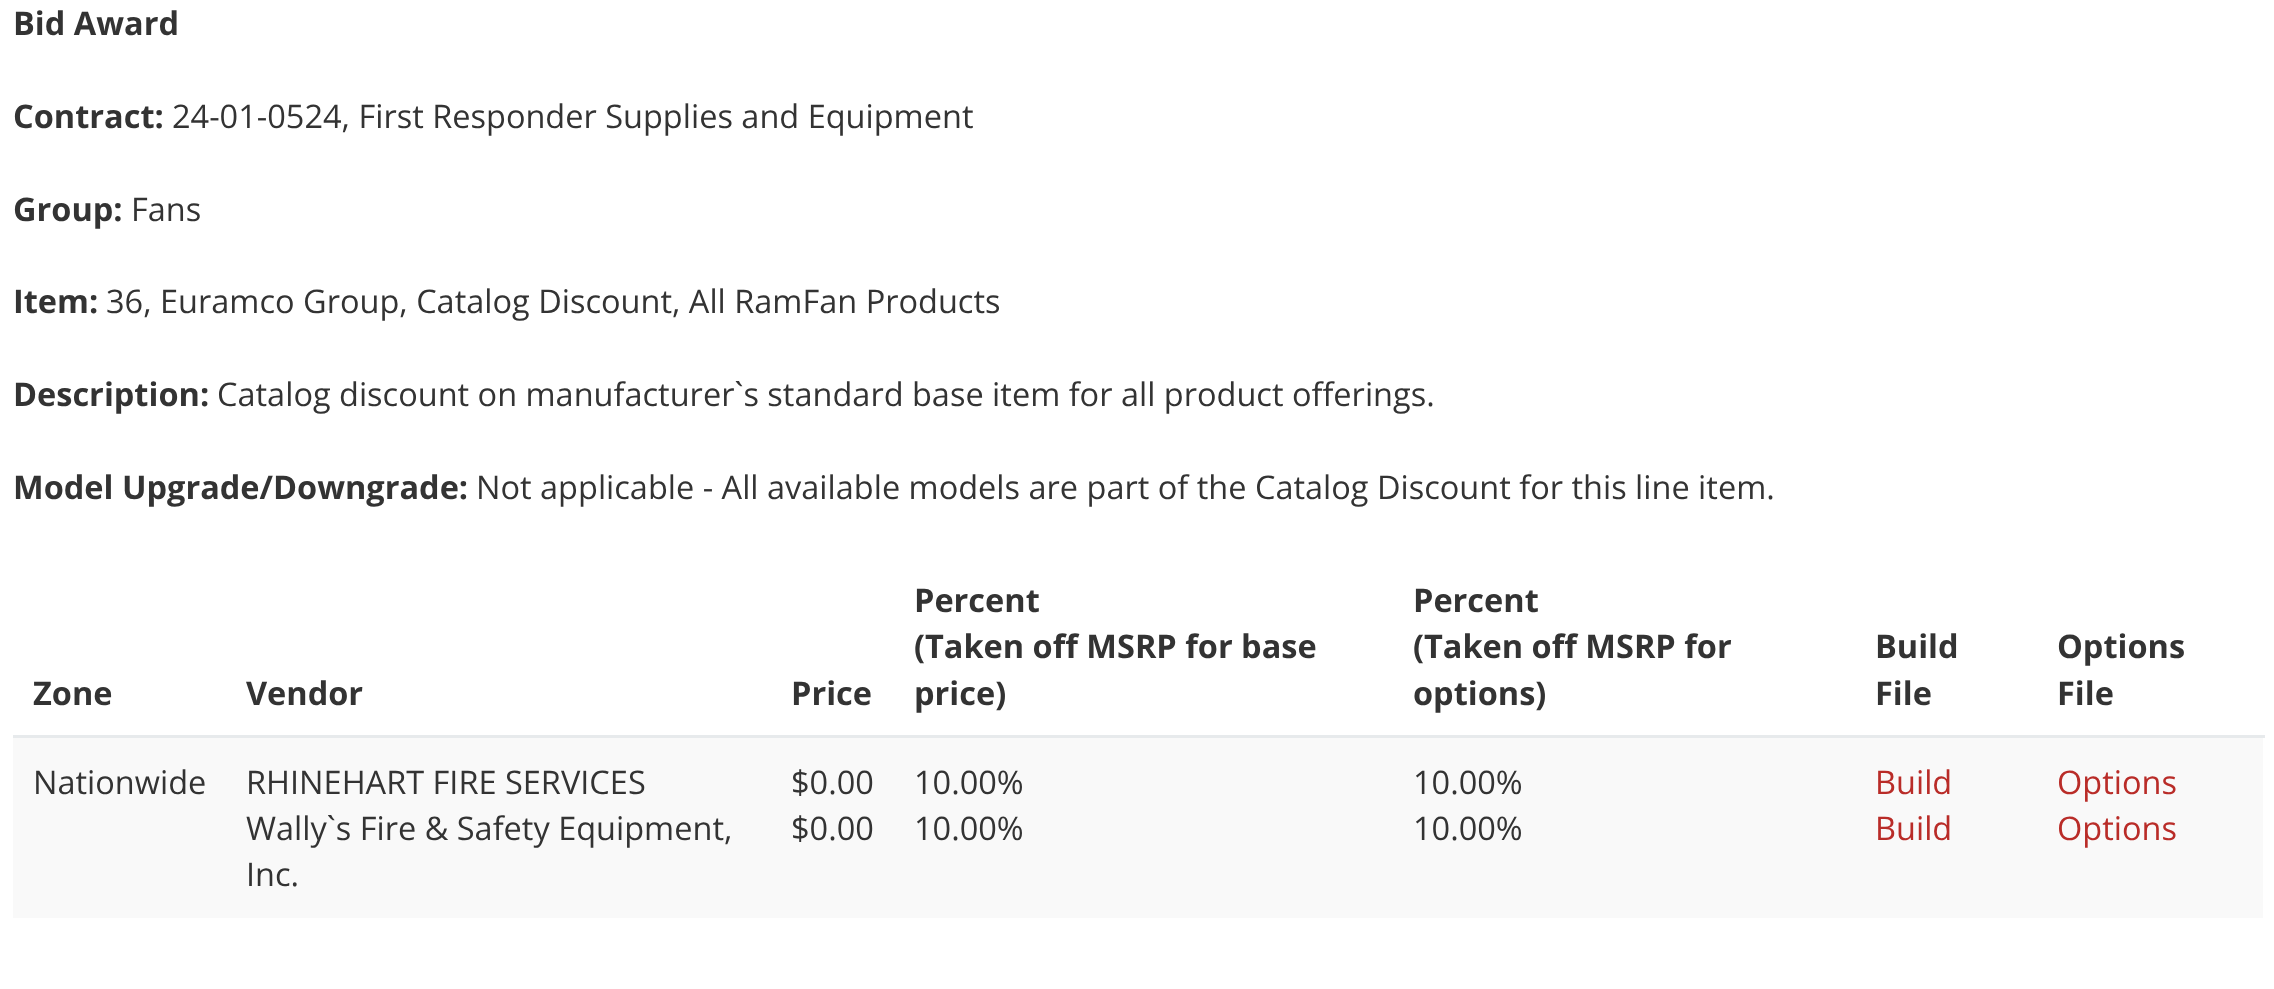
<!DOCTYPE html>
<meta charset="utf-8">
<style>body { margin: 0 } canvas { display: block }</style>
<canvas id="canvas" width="2274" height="989"></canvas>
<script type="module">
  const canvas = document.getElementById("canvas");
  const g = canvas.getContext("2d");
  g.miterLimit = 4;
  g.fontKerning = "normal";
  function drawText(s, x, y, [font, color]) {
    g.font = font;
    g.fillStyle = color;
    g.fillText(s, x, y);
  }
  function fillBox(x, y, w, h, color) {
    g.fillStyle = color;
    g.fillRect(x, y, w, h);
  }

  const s1 = ["bold 32.5px Open Sans", "#333333"];
  const s2 = ["32.5px Open Sans", "#333333"];
  const s3 = ["32.5px Open Sans", "#B92C28"];

  fillBox(0, 0, 2274, 989, "#FFFFFF");
  drawText("Bid Award", 13, 35, s1);
  drawText("Contract:", 13, 128, s1);
  drawText("24-01-0524, First Responder Supplies and Equipment", 172, 128, s2);
  drawText("Group:", 13, 221, s1);
  drawText("Fans", 131, 221, s2);
  drawText("Item:", 13, 313, s1);
  drawText("36, Euramco Group, Catalog Discount, All RamFan Products", 106, 313, s2);
  drawText("Description:", 13, 406, s1);
  drawText("Catalog discount on manufacturer`s standard base item for all product offerings.", 217, 406, s2);
  drawText("Model Upgrade/Downgrade:", 13, 499, s1);
  drawText("Not applicable - All available models are part of the Catalog Discount for this line item.", 476, 499, s2);
  drawText("Zone", 33, 705, s1);
  drawText("Vendor", 246, 705, s1);
  drawText("Price", 791, 705, s1);
  drawText("Percent", 914, 612, s1);
  drawText("(Taken off MSRP for base", 914, 658, s1);
  drawText("price)", 914, 705, s1);
  drawText("Percent", 1413, 612, s1);
  drawText("(Taken off MSRP for", 1413, 658, s1);
  drawText("options)", 1413, 705, s1);
  drawText("Build", 1875, 658, s1);
  drawText("File", 1875, 705, s1);
  drawText("Options", 2057, 658, s1);
  drawText("File", 2057, 705, s1);
  fillBox(13, 738, 2250, 180, "#F9F9F9");
  drawText("Nationwide", 33, 794, s2);
  drawText("RHINEHART FIRE SERVICES", 246, 794, s2);
  drawText("Wally`s Fire & Safety Equipment,", 246, 840, s2);
  drawText("Inc.", 246, 886, s2);
  drawText("$0.00", 791, 794, s2);
  drawText("$0.00", 791, 840, s2);
  drawText("10.00%", 914, 794, s2);
  drawText("10.00%", 914, 840, s2);
  drawText("10.00%", 1413, 794, s2);
  drawText("10.00%", 1413, 840, s2);
  drawText("Build", 1875, 794, s3);
  drawText("Build", 1875, 840, s3);
  fillBox(13, 735, 2252, 3, "#E7EAEC");
  drawText("Options", 2057, 794, s3);
  drawText("Options", 2057, 840, s3);
</script>
